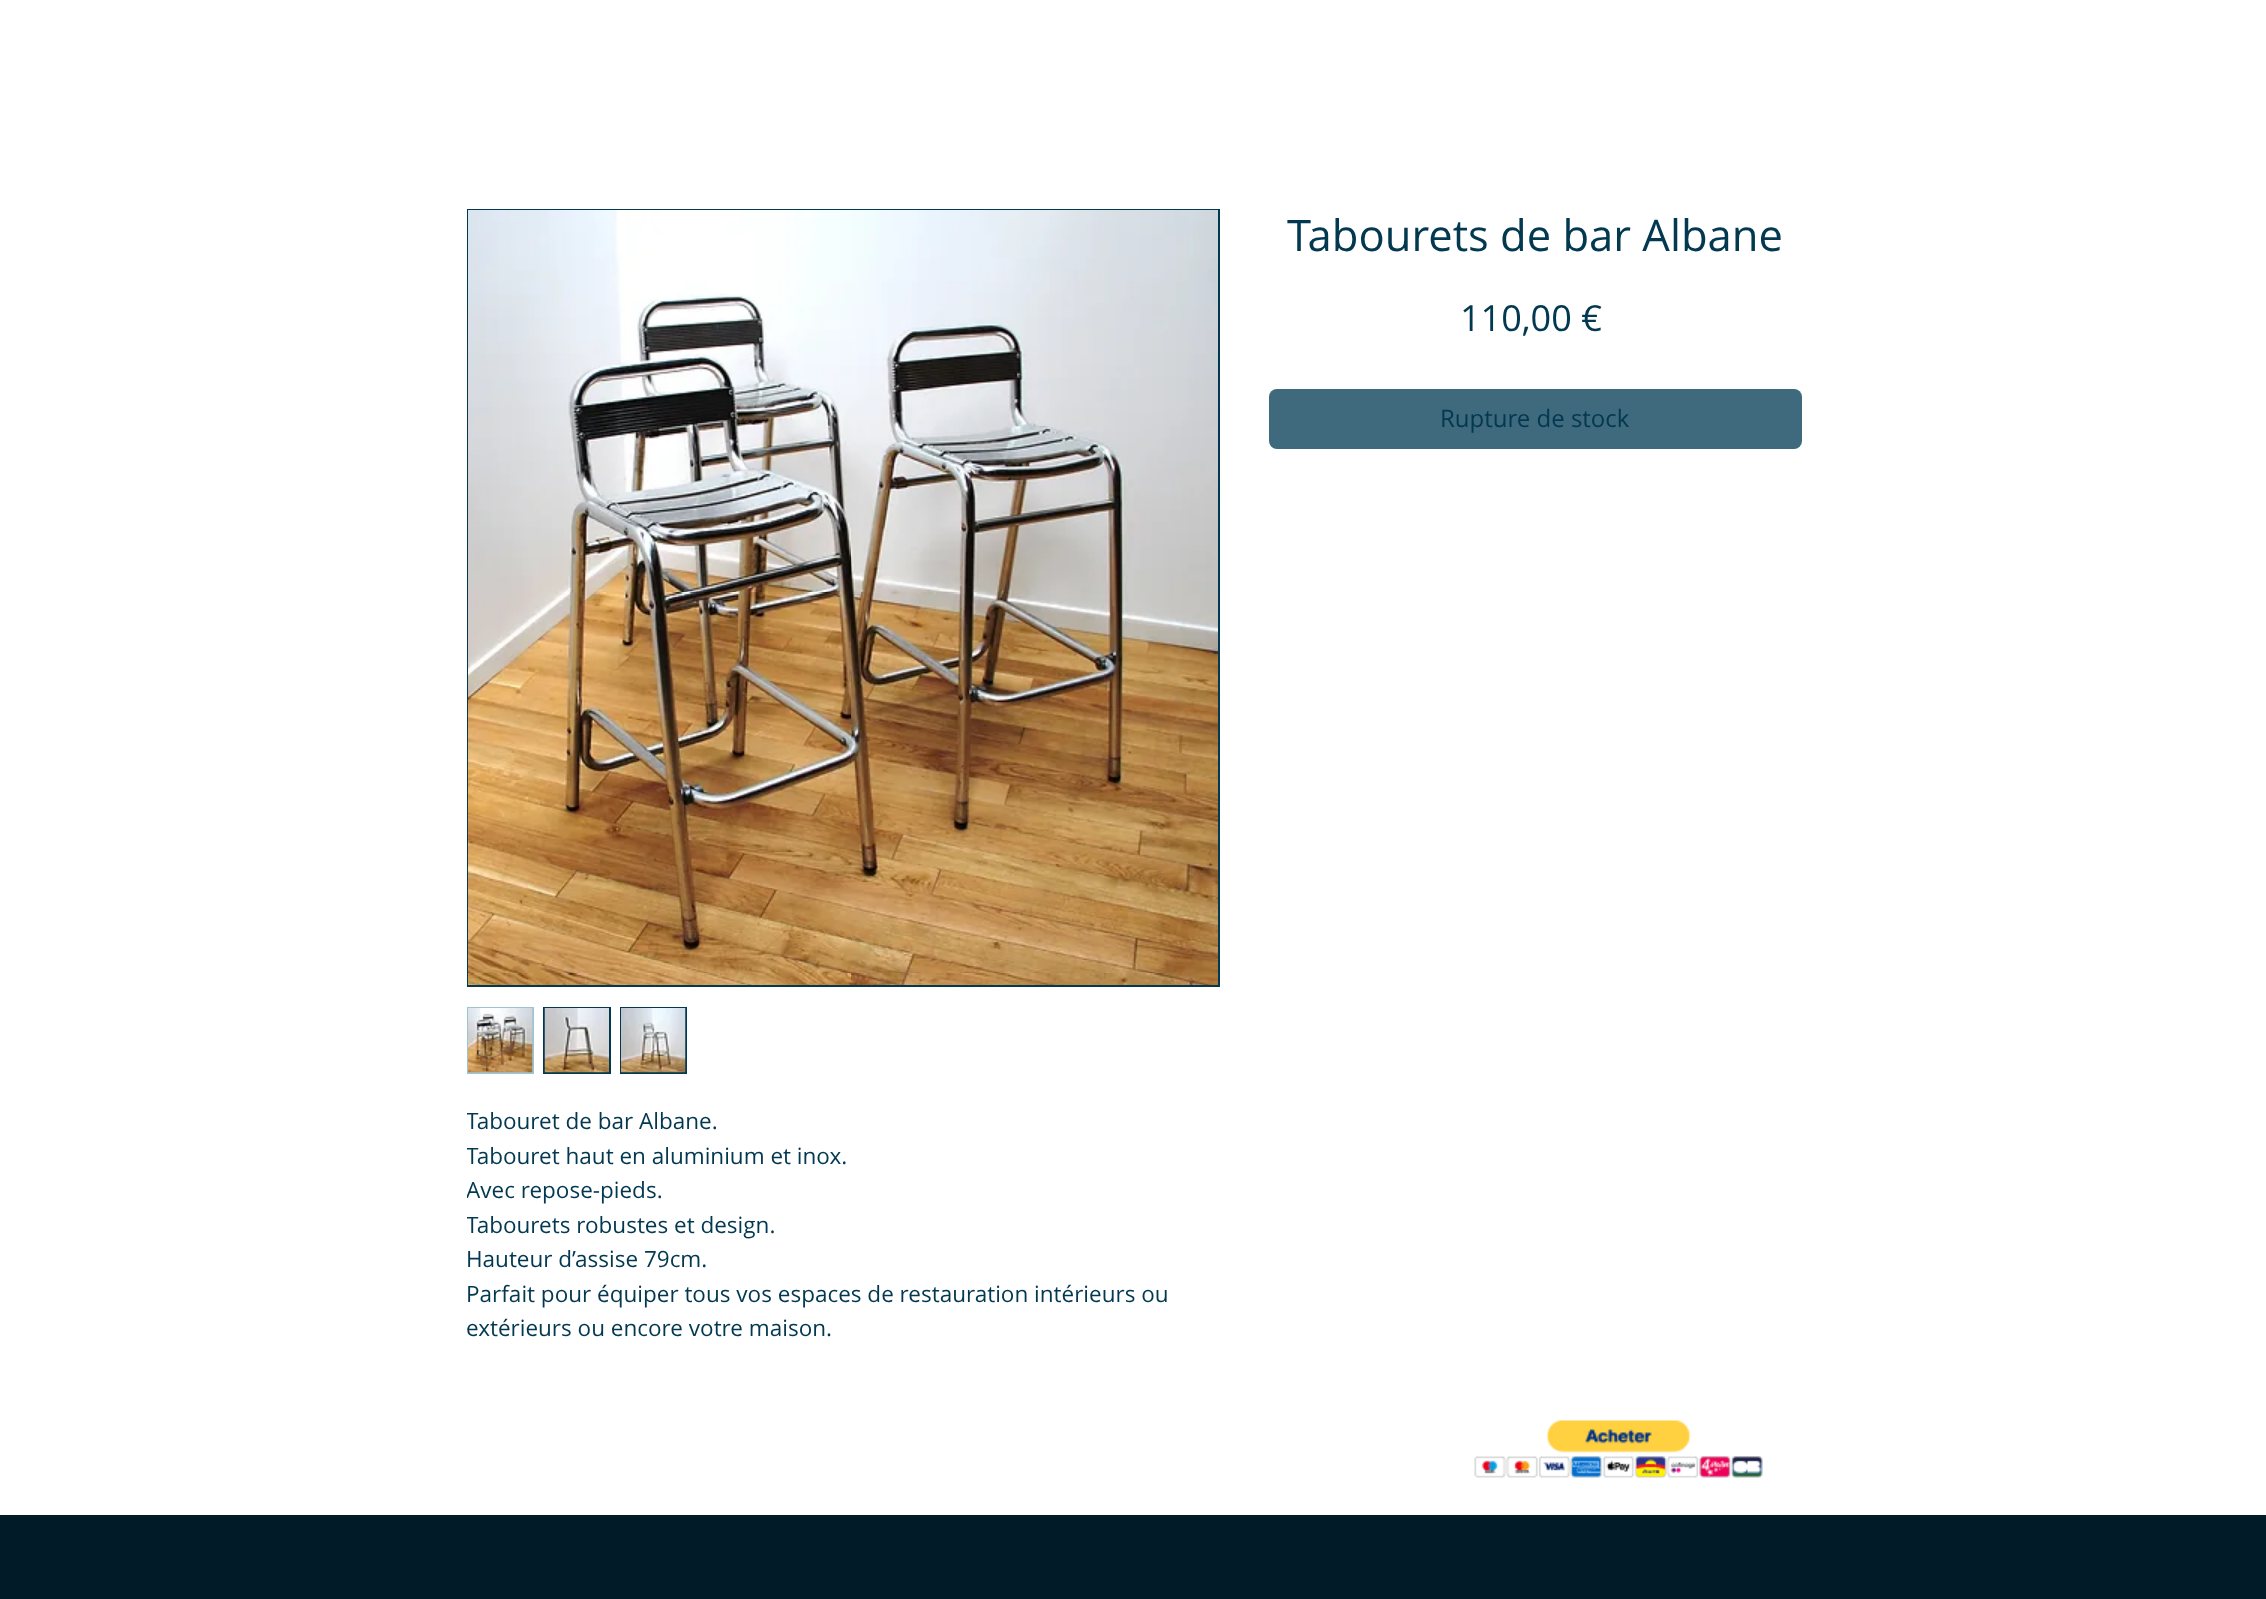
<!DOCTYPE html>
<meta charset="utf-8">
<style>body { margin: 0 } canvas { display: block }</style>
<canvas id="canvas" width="2266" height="1599"></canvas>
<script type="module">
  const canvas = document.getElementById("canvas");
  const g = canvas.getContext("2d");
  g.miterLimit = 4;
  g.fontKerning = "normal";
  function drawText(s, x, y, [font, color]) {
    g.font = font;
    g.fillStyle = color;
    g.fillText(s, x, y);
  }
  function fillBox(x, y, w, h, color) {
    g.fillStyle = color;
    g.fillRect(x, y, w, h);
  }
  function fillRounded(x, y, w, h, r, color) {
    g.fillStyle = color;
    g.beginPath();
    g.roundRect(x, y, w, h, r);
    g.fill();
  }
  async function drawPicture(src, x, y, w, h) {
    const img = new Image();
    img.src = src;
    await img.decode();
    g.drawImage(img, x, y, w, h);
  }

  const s1 = ["43.5px Open Sans", "#023850"];
  const s2 = ["36px Open Sans", "#023850"];
  const s3 = ["24px Open Sans", "#023850"];
  const s4 = ["22.5px Open Sans", "#023850"];

  fillBox(0, 0, 2266, 1599, "#011C28");
  fillBox(0, 0, 2266, 1515, "#FFFFFF");
  drawText("Tabourets de bar Albane", 1287, 251, s1);
  drawText("110,00 €", 1460, 331, s2);
  fillRounded(1269, 389, 533, 60, 8, "#3F697C");
  drawText("Rupture de stock", 1440, 427, s3);
  g.strokeStyle = "#023850";
  g.lineWidth = 2;
  g.strokeRect(468, 210, 751, 776);
  await drawPicture("pic1.png", 468, 210, 750, 775);
  g.strokeStyle = "#A0C3D3";
  g.strokeRect(468, 1008, 65, 65);
  await drawPicture("pic2.png", 468, 1008, 65, 65);
  fillBox(543, 1007, 68, 67, "#023850");
  await drawPicture("pic3.png", 544, 1008, 65, 65);
  fillBox(620, 1007, 67, 67, "#023850");
  await drawPicture("pic4.png", 621, 1008, 65, 65);
  g.save();
  g.beginPath();
  g.rect(467, 1104, 750, 276);
  g.clip();
  drawText("Tabouret de bar Albane.", 466, 1129, s4);
  drawText("Tabouret haut en aluminium et inox.", 466, 1164, s4);
  drawText("Avec repose-pieds.", 466, 1198, s4);
  drawText("Tabourets robustes et design.", 466, 1233, s4);
  g.restore();
  drawText("Hauteur d’assise 79cm.", 466, 1267, s4);
  drawText("Parfait pour équiper tous vos espaces de restauration intérieurs ou", 466, 1302, s4);
  drawText("extérieurs ou encore votre maison.", 466, 1336, s4);
  await drawPicture("pic5.png", 1474, 1420, 289, 58);
</script>
